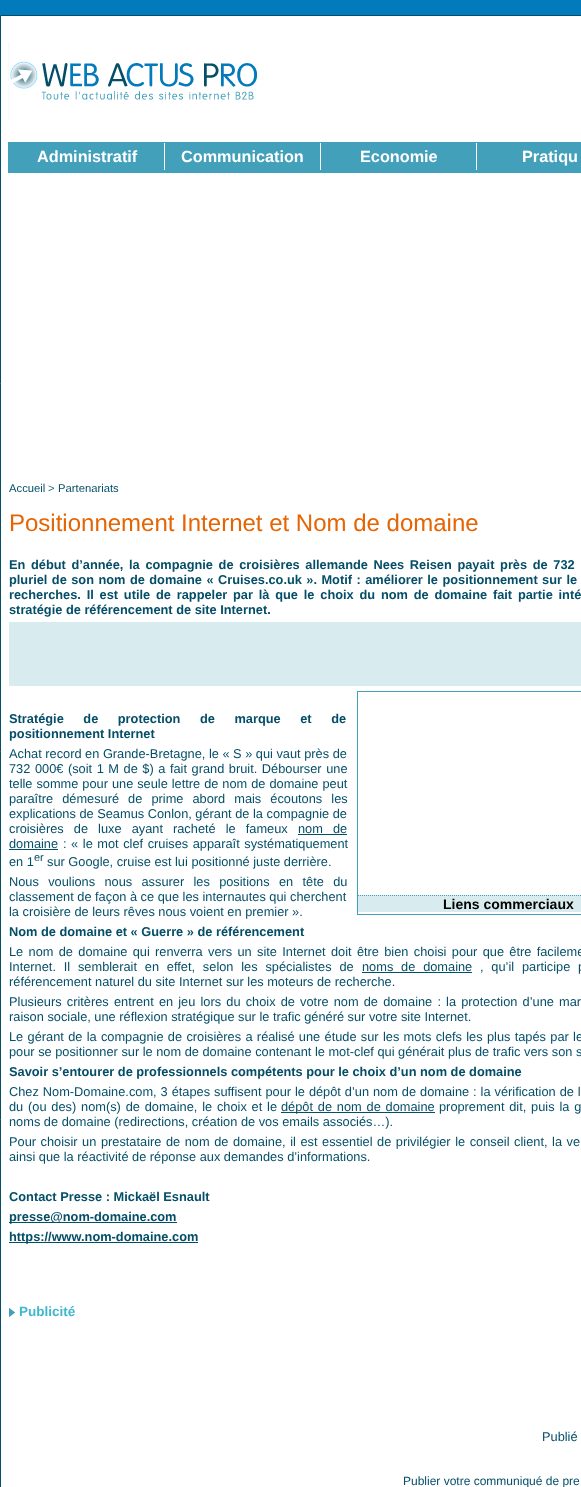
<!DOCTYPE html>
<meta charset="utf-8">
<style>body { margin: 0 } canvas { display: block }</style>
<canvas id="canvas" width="581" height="1487"></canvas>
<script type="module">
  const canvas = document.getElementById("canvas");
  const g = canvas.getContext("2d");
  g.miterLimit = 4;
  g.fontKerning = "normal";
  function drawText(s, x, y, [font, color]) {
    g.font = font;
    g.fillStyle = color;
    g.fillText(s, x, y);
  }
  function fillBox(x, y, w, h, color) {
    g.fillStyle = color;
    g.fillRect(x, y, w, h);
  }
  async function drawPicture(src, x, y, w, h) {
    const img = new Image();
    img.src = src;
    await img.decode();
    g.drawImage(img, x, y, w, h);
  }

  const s1 = ["bold 16.25px Liberation Sans", "#FFFFFF"];
  const s2 = ["11.25px Liberation Sans", "#044E68"];
  const s3 = ["11.25px Liberation Sans", "#23647A"];
  const s4 = ["24px Liberation Sans", "#E56403"];
  const s5 = ["bold 12.8px Liberation Sans", "#044E68"];
  const s6 = ["12.8px Liberation Sans", "#044E68"];
  const s7 = ["11px Liberation Sans", "#044E68"];
  const s8 = ["bold 14px Liberation Sans", "#000000"];
  const s9 = ["bold 13.5px Liberation Sans", "#3FB7CE"];
  const s10 = ["12px Liberation Sans", "#044E68"];

  fillBox(0, 0, 581, 1487, "#027ABB");
  g.fillStyle = "#FFFFFF";
  g.beginPath();
  g.rect(0.5, 15.5, 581, 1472);
  g.fill();
  g.strokeStyle = "#044E68";
  g.stroke();
  await drawPicture("pic1.png", 8, 42, 249, 79);
  fillBox(8, 142, 573, 31, "#42A0BA");
  fillBox(164, 143, 1, 27, "#FFFFFF");
  drawText("Administratif", 37, 162, s1);
  fillBox(320, 143, 1, 27, "#FFFFFF");
  drawText("Communication", 181, 162, s1);
  fillBox(476, 143, 1, 27, "#FFFFFF");
  drawText("Economie", 360, 162, s1);
  drawText("Pratiqu", 522, 162, s1);
  drawText("Accueil", 9, 492, s2);
  drawText(">", 48, 492, s3);
  drawText("Partenariats", 58, 492, s2);
  drawText("Positionnement Internet et Nom de domaine", 9, 531, s4);
  g.wordSpacing = "2.1px";
  drawText("En début d’année, la compagnie de croisières allemande Nees Reisen payait près de 732", 9, 569, s5);
  g.wordSpacing = "0.9px";
  drawText("pluriel de son nom de domaine « Cruises.co.uk ». Motif : améliorer le positionnement sur le", 9, 584, s5);
  g.wordSpacing = "2.25px";
  drawText("recherches. Il est utile de rappeler par là que le choix du nom de domaine fait partie inté", 9, 599, s5);
  g.wordSpacing = "0px";
  drawText("stratégie de référencement de site Internet.", 9, 614, s5);
  fillBox(9, 622, 572, 64, "#D8EBEF");
  g.wordSpacing = "16px";
  drawText("Stratégie de protection de marque et de", 9, 723, s5);
  g.wordSpacing = "0px";
  drawText("positionnement Internet", 9, 738, s5);
  drawText("Achat record en Grande-Bretagne, le « S » qui vaut près de", 9, 758, s6);
  g.wordSpacing = "1px";
  drawText("732 000€ (soit 1 M de $) a fait grand bruit. Débourser une", 9, 773, s6);
  g.wordSpacing = "0.4px";
  drawText("telle somme pour une seule lettre de nom de domaine peut", 9, 788, s6);
  g.wordSpacing = "5.5px";
  drawText("paraître démesuré de prime abord mais écoutons les", 9, 803, s6);
  g.wordSpacing = "0px";
  drawText("explications de Seamus Conlon, gérant de la compagnie de", 9, 818, s6);
  g.wordSpacing = "6.5px";
  drawText("croisières de luxe ayant racheté le fameux", 9, 833, s6);
  drawText("nom de", 298, 833, s6);
  fillBox(298, 834, 49, 1, "#044E68");
  g.wordSpacing = "0px";
  drawText("domaine", 9, 848, s6);
  fillBox(9, 849, 49, 1, "#044E68");
  g.wordSpacing = "1px";
  drawText(": « le mot clef cruises apparaît systématiquement", 63, 848, s6);
  g.wordSpacing = "0px";
  drawText("en 1", 9, 866, s6);
  drawText("er", 34, 861, s7);
  drawText("sur Google, cruise est lui positionné juste derrière.", 47, 866, s6);
  g.wordSpacing = "5.75px";
  drawText("Nous voulions nous assurer les positions en tête du", 9, 886, s6);
  g.wordSpacing = "0px";
  drawText("classement de façon à ce que les internautes qui cherchent", 9, 901, s6);
  drawText("la croisière de leurs rêves nous voient en premier ».", 9, 916, s6);
  drawText("Nom de domaine et « Guerre » de référencement", 9, 936, s5);
  g.wordSpacing = "1.75px";
  drawText("Le nom de domaine qui renverra vers un site Internet doit être bien choisi pour que être facileme", 9, 956, s6);
  g.wordSpacing = "4.25px";
  drawText("Internet. Il semblerait en effet, selon les spécialistes de", 9, 971, s6);
  drawText("noms de domaine", 362, 971, s6);
  fillBox(362, 972, 110, 1, "#044E68");
  drawText(", qu’il participe p", 480, 971, s6);
  g.wordSpacing = "0px";
  drawText("référencement naturel du site Internet sur les moteurs de recherche.", 9, 986, s6);
  g.wordSpacing = "1.6px";
  drawText("Plusieurs critères entrent en jeu lors du choix de votre nom de domaine : la protection d’une mar", 9, 1006, s6);
  g.wordSpacing = "0px";
  drawText("raison sociale, une réflexion stratégique sur le trafic généré sur votre site Internet.", 9, 1021, s6);
  g.wordSpacing = "0.75px";
  drawText("Le gérant de la compagnie de croisières a réalisé une étude sur les mots clefs les plus tapés par le", 9, 1041, s6);
  g.wordSpacing = "0px";
  drawText("pour se positionner sur le nom de domaine contenant le mot-clef qui générait plus de trafic vers son s", 9, 1056, s6);
  drawText("Savoir s’entourer de professionnels compétents pour le choix d’un nom de domaine", 9, 1076, s5);
  g.wordSpacing = "0.4px";
  drawText("Chez Nom-Domaine.com, 3 étapes suffisent pour le dépôt d’un nom de domaine : la vérification de l", 9, 1096, s6);
  g.wordSpacing = "1.25px";
  drawText("du (ou des) nom(s) de domaine, le choix et le", 9, 1111, s6);
  fillBox(281, 1112, 154, 1, "#044E68");
  drawText("dépôt de nom de domaine", 281, 1111, s6);
  drawText("proprement dit, puis la g", 439, 1111, s6);
  g.wordSpacing = "0px";
  drawText("noms de domaine (redirections, création de vos emails associés…).", 9, 1126, s6);
  g.wordSpacing = "1px";
  drawText("Pour choisir un prestataire de nom de domaine, il est essentiel de privilégier le conseil client, la ve", 9, 1146, s6);
  g.wordSpacing = "0px";
  drawText("ainsi que la réactivité de réponse aux demandes d’informations.", 9, 1161, s6);
  drawText("Contact Presse : Mickaël Esnault", 9, 1201, s5);
  fillBox(9, 1222, 168, 1, "#044E68");
  drawText("presse@nom-domaine.com", 9, 1221, s5);
  fillBox(9, 1242, 189, 1, "#044E68");
  drawText("https://www.nom-domaine.com", 9, 1241, s5);
  g.strokeStyle = "#42A0BA";
  g.strokeRect(357.5, 691.5, 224, 223);
  fillBox(358, 895, 223, 17, "#D8EBEF");
  g.beginPath();
  g.moveTo(358, 895.5);
  g.lineTo(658, 895.5);
  g.setLineDash([1, 1]);
  g.stroke();
  drawText("Liens commerciaux", 443, 909, s8);
  await drawPicture("pic2.png", 9, 1308, 6, 9);
  drawText("Publicité", 19, 1316, s9);
  drawText("Publié", 542, 1441, s6);
  drawText("Publier votre communiqué de pre", 403, 1485, s10);
</script>
